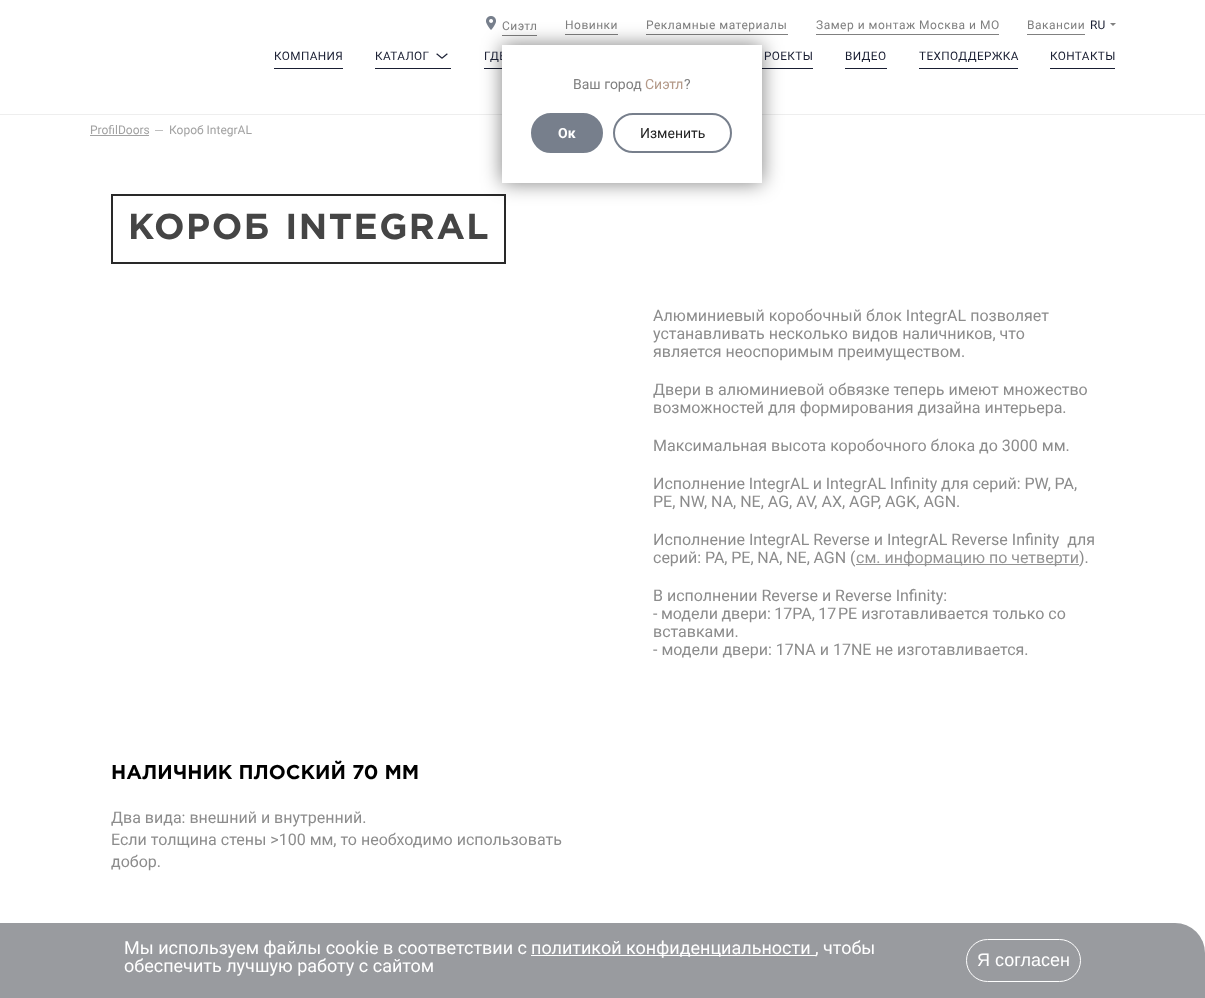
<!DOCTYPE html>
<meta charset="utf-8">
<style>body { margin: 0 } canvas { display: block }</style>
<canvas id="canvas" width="1205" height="998"></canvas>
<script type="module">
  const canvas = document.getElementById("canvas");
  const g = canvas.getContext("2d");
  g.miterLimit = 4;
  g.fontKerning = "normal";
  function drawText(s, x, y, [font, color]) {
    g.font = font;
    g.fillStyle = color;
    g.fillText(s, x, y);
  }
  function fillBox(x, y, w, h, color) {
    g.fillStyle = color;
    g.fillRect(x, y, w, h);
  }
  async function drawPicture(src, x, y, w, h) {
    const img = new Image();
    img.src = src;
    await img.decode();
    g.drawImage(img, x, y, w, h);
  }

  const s1 = ["12px Roboto", "#808080"];
  const s2 = ["11.75px Roboto", "#191E32"];
  const s3 = ["14px Roboto", "#808080"];
  const s4 = ["14px Roboto", "#B49A89"];
  const s5 = ["bold 14px Roboto", "#FFFFFF"];
  const s6 = ["14px Roboto", "#222222"];
  const s7 = ["12px Roboto", "#191E32"];
  const s8 = ["12px Roboto", "#A2A2A2"];
  const s9 = ["bold 36px Gotham", "#454545"];
  const s10 = ["16px Roboto", "#8C8C8C"];
  const s11 = ["16px Roboto", "#949494"];
  const s12 = ["bold 20px Gotham", "#000000"];
  const s13 = ["18px 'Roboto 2'", "#FFFFFF"];
  const s14 = ["18px Liberation Sans", "#FFFFFF"];

  fillBox(0, 0, 1205, 998, "#FFFFFF");
  fillBox(0, 114, 1205, 1, "#EEEEEE");
  g.letterSpacing = "0.5px";
  drawText("Новинки", 565, 29, s1);
  fillBox(565, 34, 53, 1, "#808080");
  drawText("Рекламные материалы", 646, 29, s1);
  fillBox(646, 34, 142, 1, "#808080");
  drawText("Замер и монтаж Москва и МО", 816, 29, s1);
  fillBox(816, 34, 183, 1, "#808080");
  drawText("Вакансии", 1027, 29, s1);
  fillBox(1027, 34, 58, 1, "#808080");
  await drawPicture("pic1.png", 486, 16, 10, 14);
  drawText("Сиэтл", 502, 30, s1);
  fillBox(502, 35, 35, 1, "#808080");
  fillBox(484, 68, 18, 1, "#191E32");
  fillBox(755, 68, 58, 1, "#191E32");
  g.strokeStyle = "#292929";
  g.lineWidth = 2;
  g.strokeRect(112, 195, 393, 68);
  g.fillStyle = "rgba(0, 0, 0, 0.5)";
  g.filter = "blur(10px)";
  g.beginPath();
  g.rect(502, 45, 260, 138);
  g.fill();
  g.filter = "none";
  g.letterSpacing = "0.4px";
  drawText("ГДЕ", 484, 60, s2);
  fillBox(502, 45, 260, 138, "#FFFFFF");
  g.letterSpacing = "0px";
  drawText("Ваш город", 573, 89, s3);
  drawText("Сиэтл", 645, 89, s4);
  drawText("?", 684, 89, s3);
  g.fillStyle = "#777F8C";
  g.beginPath();
  g.roundRect(532, 114, 70, 38, 19);
  g.fill();
  g.strokeStyle = "#777F8C";
  g.stroke();
  drawText("Ок", 558, 138, s5);
  g.beginPath();
  g.roundRect(614, 114, 117, 38, 19);
  g.stroke();
  drawText("Изменить", 640, 138, s6);
  drawText("RU", 1090, 29, s7);
  g.fillStyle = "#808080";
  g.beginPath();
  g.moveTo(1110, 23);
  g.lineTo(1116, 23);
  g.lineTo(1113, 26);
  g.closePath();
  g.fill();
  g.letterSpacing = "0.4px";
  drawText("КОМПАНИЯ", 274, 60, s2);
  fillBox(274, 68, 69, 1, "#191E32");
  drawText("КАТАЛОГ", 375, 60, s2);
  await drawPicture("pic2.png", 436, 53, 12, 6);
  fillBox(375, 68, 76, 1, "#191E32");
  drawText("РОЕКТЫ", 764, 60, s2);
  drawText("ВИДЕО", 845, 60, s2);
  fillBox(845, 68, 42, 1, "#191E32");
  drawText("ТЕХПОДДЕРЖКА", 919, 60, s2);
  fillBox(919, 68, 99, 1, "#191E32");
  drawText("КОНТАКТЫ", 1050, 60, s2);
  fillBox(1050, 68, 65, 1, "#191E32");
  g.letterSpacing = "0px";
  drawText("ProfilDoors", 90, 134, s8);
  fillBox(90, 135, 59, 1, "#A2A2A2");
  fillBox(155, 130, 8, 1, "#BFBFBF");
  drawText("Короб IntegrAL", 169, 134, s8);
  g.letterSpacing = "1.5px";
  g.wordSpacing = "2px";
  drawText("КОРОБ INTEGRAL", 128, 239, s9);
  g.letterSpacing = "0px";
  g.wordSpacing = "0px";
  drawText("Алюминиевый коробочный блок IntegrAL позволяет", 653, 321, s10);
  drawText("устанавливать несколько видов наличников, что", 653, 339, s10);
  drawText("является неоспоримым преимуществом.", 653, 357, s10);
  drawText("Двери в алюминиевой обвязке теперь имеют множество", 653, 395, s10);
  drawText("возможностей для формирования дизайна интерьера.", 653, 413, s10);
  drawText("Максимальная высота коробочного блока до 3000 мм.", 653, 451, s10);
  g.wordSpacing = "-0.25px";
  drawText("Исполнение IntegrAL и IntegrAL Infinity для серий: PW, PA,", 653, 489, s10);
  g.wordSpacing = "0px";
  drawText("PE, NW, NA, NE, AG, AV, AX, AGP, AGK, AGN.", 653, 507, s10);
  drawText("Исполнение IntegrAL Reverse и IntegrAL Reverse Infinity  для", 653, 545, s10);
  g.wordSpacing = "-0.25px";
  drawText("серий: PA, PE, NA, NE, AGN (", 653, 563, s10);
  fillBox(856, 564, 223, 1, "#949494");
  g.wordSpacing = "0px";
  drawText("см. информацию по четверти", 856, 563, s11);
  drawText(").", 1079, 563, s10);
  drawText("В исполнении Reverse и Reverse Infinity:", 653, 601, s10);
  g.wordSpacing = "-0.5px";
  drawText("- модели двери: 17PA, 17", 653, 619, s10);
  g.wordSpacing = "0px";
  drawText("PE изготавливается только со", 838, 619, s10);
  drawText("вставками.", 653, 637, s10);
  drawText("- модели двери: 17NA и 17NE не изготавливается.", 653, 655, s10);
  drawText("НАЛИЧНИК ПЛОСКИЙ 70 ММ", 111, 779, s12);
  drawText("Два вида: внешний и внутренний.", 111, 823, s10);
  drawText("Если толщина стены >100 мм, то необходимо использовать", 111, 845, s10);
  drawText("добор.", 111, 867, s10);
  g.fillStyle = "#999B9F";
  g.beginPath();
  g.roundRect(0, 923, 1205, 75, [0, 30, 0, 0]);
  g.fill();
  drawText("Мы используем файлы cookie в соответствии с", 124, 954, s13);
  fillBox(531, 955, 285, 1, "#FFFFFF");
  drawText("политикой конфиденциальности , чтобы", 531, 954, s13);
  drawText("обеспечить лучшую работу с сайтом", 124, 972, s13);
  g.beginPath();
  g.roundRect(966.5, 939.5, 114, 42, 21);
  g.strokeStyle = "#FFFFFF";
  g.lineWidth = 1;
  g.stroke();
  drawText("Я согласен", 977, 966, s14);
</script>
